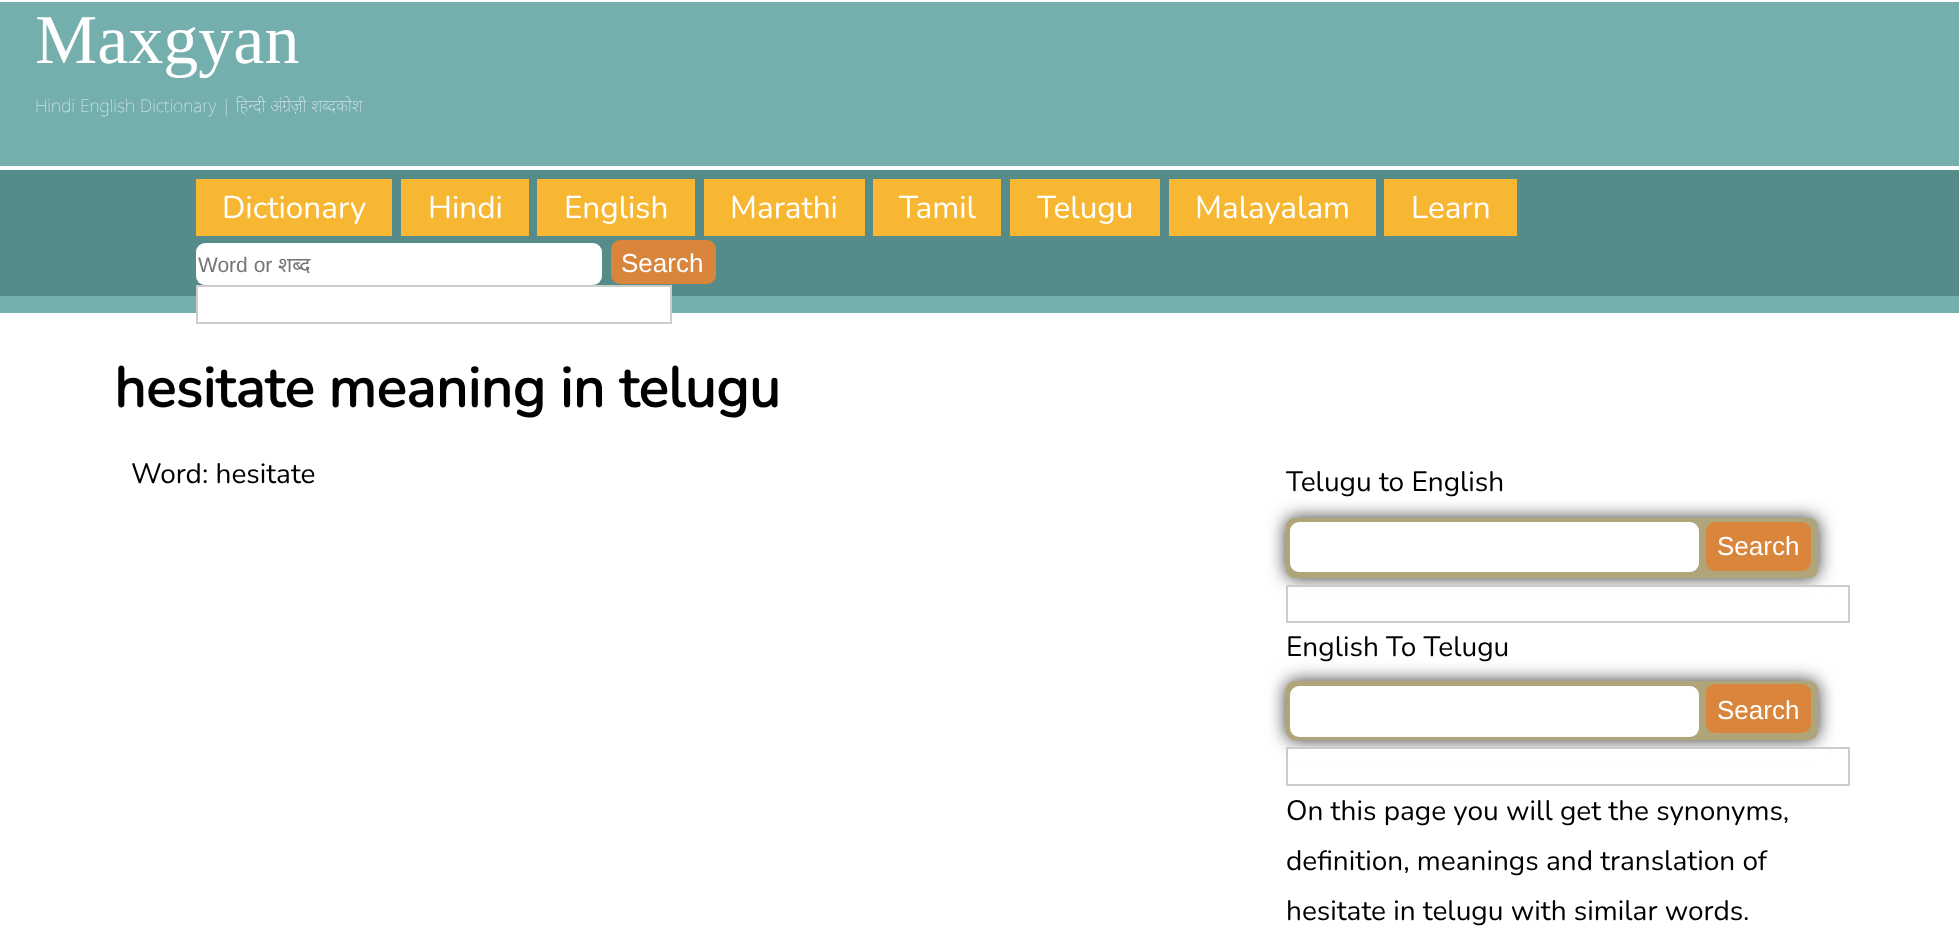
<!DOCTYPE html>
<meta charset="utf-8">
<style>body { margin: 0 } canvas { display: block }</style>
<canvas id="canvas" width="1959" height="926"></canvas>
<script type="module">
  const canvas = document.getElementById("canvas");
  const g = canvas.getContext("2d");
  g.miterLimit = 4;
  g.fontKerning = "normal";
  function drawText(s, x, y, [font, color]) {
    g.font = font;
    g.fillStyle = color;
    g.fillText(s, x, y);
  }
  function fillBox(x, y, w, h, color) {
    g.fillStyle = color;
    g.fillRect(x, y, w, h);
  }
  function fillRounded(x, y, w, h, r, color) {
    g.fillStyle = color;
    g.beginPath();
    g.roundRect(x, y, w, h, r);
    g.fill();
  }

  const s1 = ["70px Liberation Serif", "#FFFFFF"];
  const s2 = ["100 17.5px Noto Sans", "#E7F1F1"];
  const s3 = ["200 31.5px Nunito", "#FFFFFF"];
  const s4 = ["21px Liberation Sans", "#757575"];
  const s5 = ["21px Noto Sans", "#757575"];
  const s6 = ["26px Liberation Sans", "#FFFFFF"];
  const s7 = ["bold 56px Nunito", "#000000"];
  const s8 = ["200 28px Nunito", "#000000"];

  fillBox(0, 0, 1959, 926, "#FFFFFF");
  fillBox(0, 2, 1959, 311, "#74AFAD");
  drawText("Maxgyan", 35, 63, s1);
  g.wordSpacing = "0.5px";
  drawText("Hindi English Dictionary | हिन्दी अंग्रेज़ी शब्दकोश", 35, 112, s2);
  fillBox(0, 170, 1959, 126, "#558C89");
  fillBox(0, 166, 1959, 4, "#FFFFFF");
  fillBox(196, 179, 196, 57, "#F7B733");
  g.wordSpacing = "0px";
  drawText("Dictionary", 222, 218, s3);
  fillBox(401, 179, 128, 57, "#F7B733");
  drawText("Hindi", 428, 218, s3);
  fillBox(537, 179, 158, 57, "#F7B733");
  drawText("English", 564, 218, s3);
  fillBox(704, 179, 161, 57, "#F7B733");
  drawText("Marathi", 730, 218, s3);
  fillBox(873, 179, 128, 57, "#F7B733");
  drawText("Tamil", 899, 218, s3);
  fillBox(1010, 179, 150, 57, "#F7B733");
  drawText("Telugu", 1037, 218, s3);
  fillBox(1169, 179, 207, 57, "#F7B733");
  drawText("Malayalam", 1195, 218, s3);
  fillBox(1384, 179, 133, 57, "#F7B733");
  drawText("Learn", 1411, 218, s3);
  fillRounded(196, 243, 406, 42, 9, "#FFFFFF");
  drawText("Word or", 198, 272, s4);
  drawText("शब्द", 278, 272, s5);
  fillRounded(611, 240, 105, 44, 9, "#D9853B");
  drawText("Search", 621, 272, s6);
  fillBox(198, 287, 472, 26, "#FFFFFF");
  g.strokeStyle = "#CCCCCC";
  g.lineWidth = 2;
  g.strokeRect(197, 286, 474, 37);
  drawText("hesitate meaning in telugu", 114, 407, s7);
  drawText("Word: hesitate", 131, 483, s8);
  g.fillStyle = "#333333";
  g.filter = "blur(9px)";
  g.beginPath();
  g.roundRect(1286, 518, 532, 60, 9);
  g.fill();
  g.filter = "none";
  drawText("Telugu to English", 1286, 491, s8);
  fillRounded(1286, 518, 532, 60, 9, "#B0A479");
  fillRounded(1290, 522, 409, 50, 9, "#FFFFFF");
  fillRounded(1706, 522, 105, 49, 9, "#D9853B");
  drawText("Search", 1717, 555, s6);
  fillBox(1288, 587, 540, 11, "#FFFFFF");
  g.strokeRect(1287, 586, 562, 36);
  g.fillStyle = "#333333";
  g.filter = "blur(9px)";
  g.beginPath();
  g.roundRect(1286, 681, 532, 59, 9);
  g.fill();
  g.filter = "none";
  drawText("English To Telugu", 1286, 656, s8);
  fillRounded(1286, 681, 532, 59, 9, "#B0A479");
  fillRounded(1290, 686, 409, 51, 9, "#FFFFFF");
  fillRounded(1706, 684, 105, 49, 9, "#D9853B");
  drawText("Search", 1717, 719, s6);
  fillBox(1288, 749, 540, 11, "#FFFFFF");
  g.strokeRect(1287, 748, 562, 37);
  drawText("On this page you will get the synonyms,", 1286, 820, s8);
  drawText("definition, meanings and translation of", 1286, 870, s8);
  drawText("hesitate in telugu with similar words.", 1286, 920, s8);
</script>
